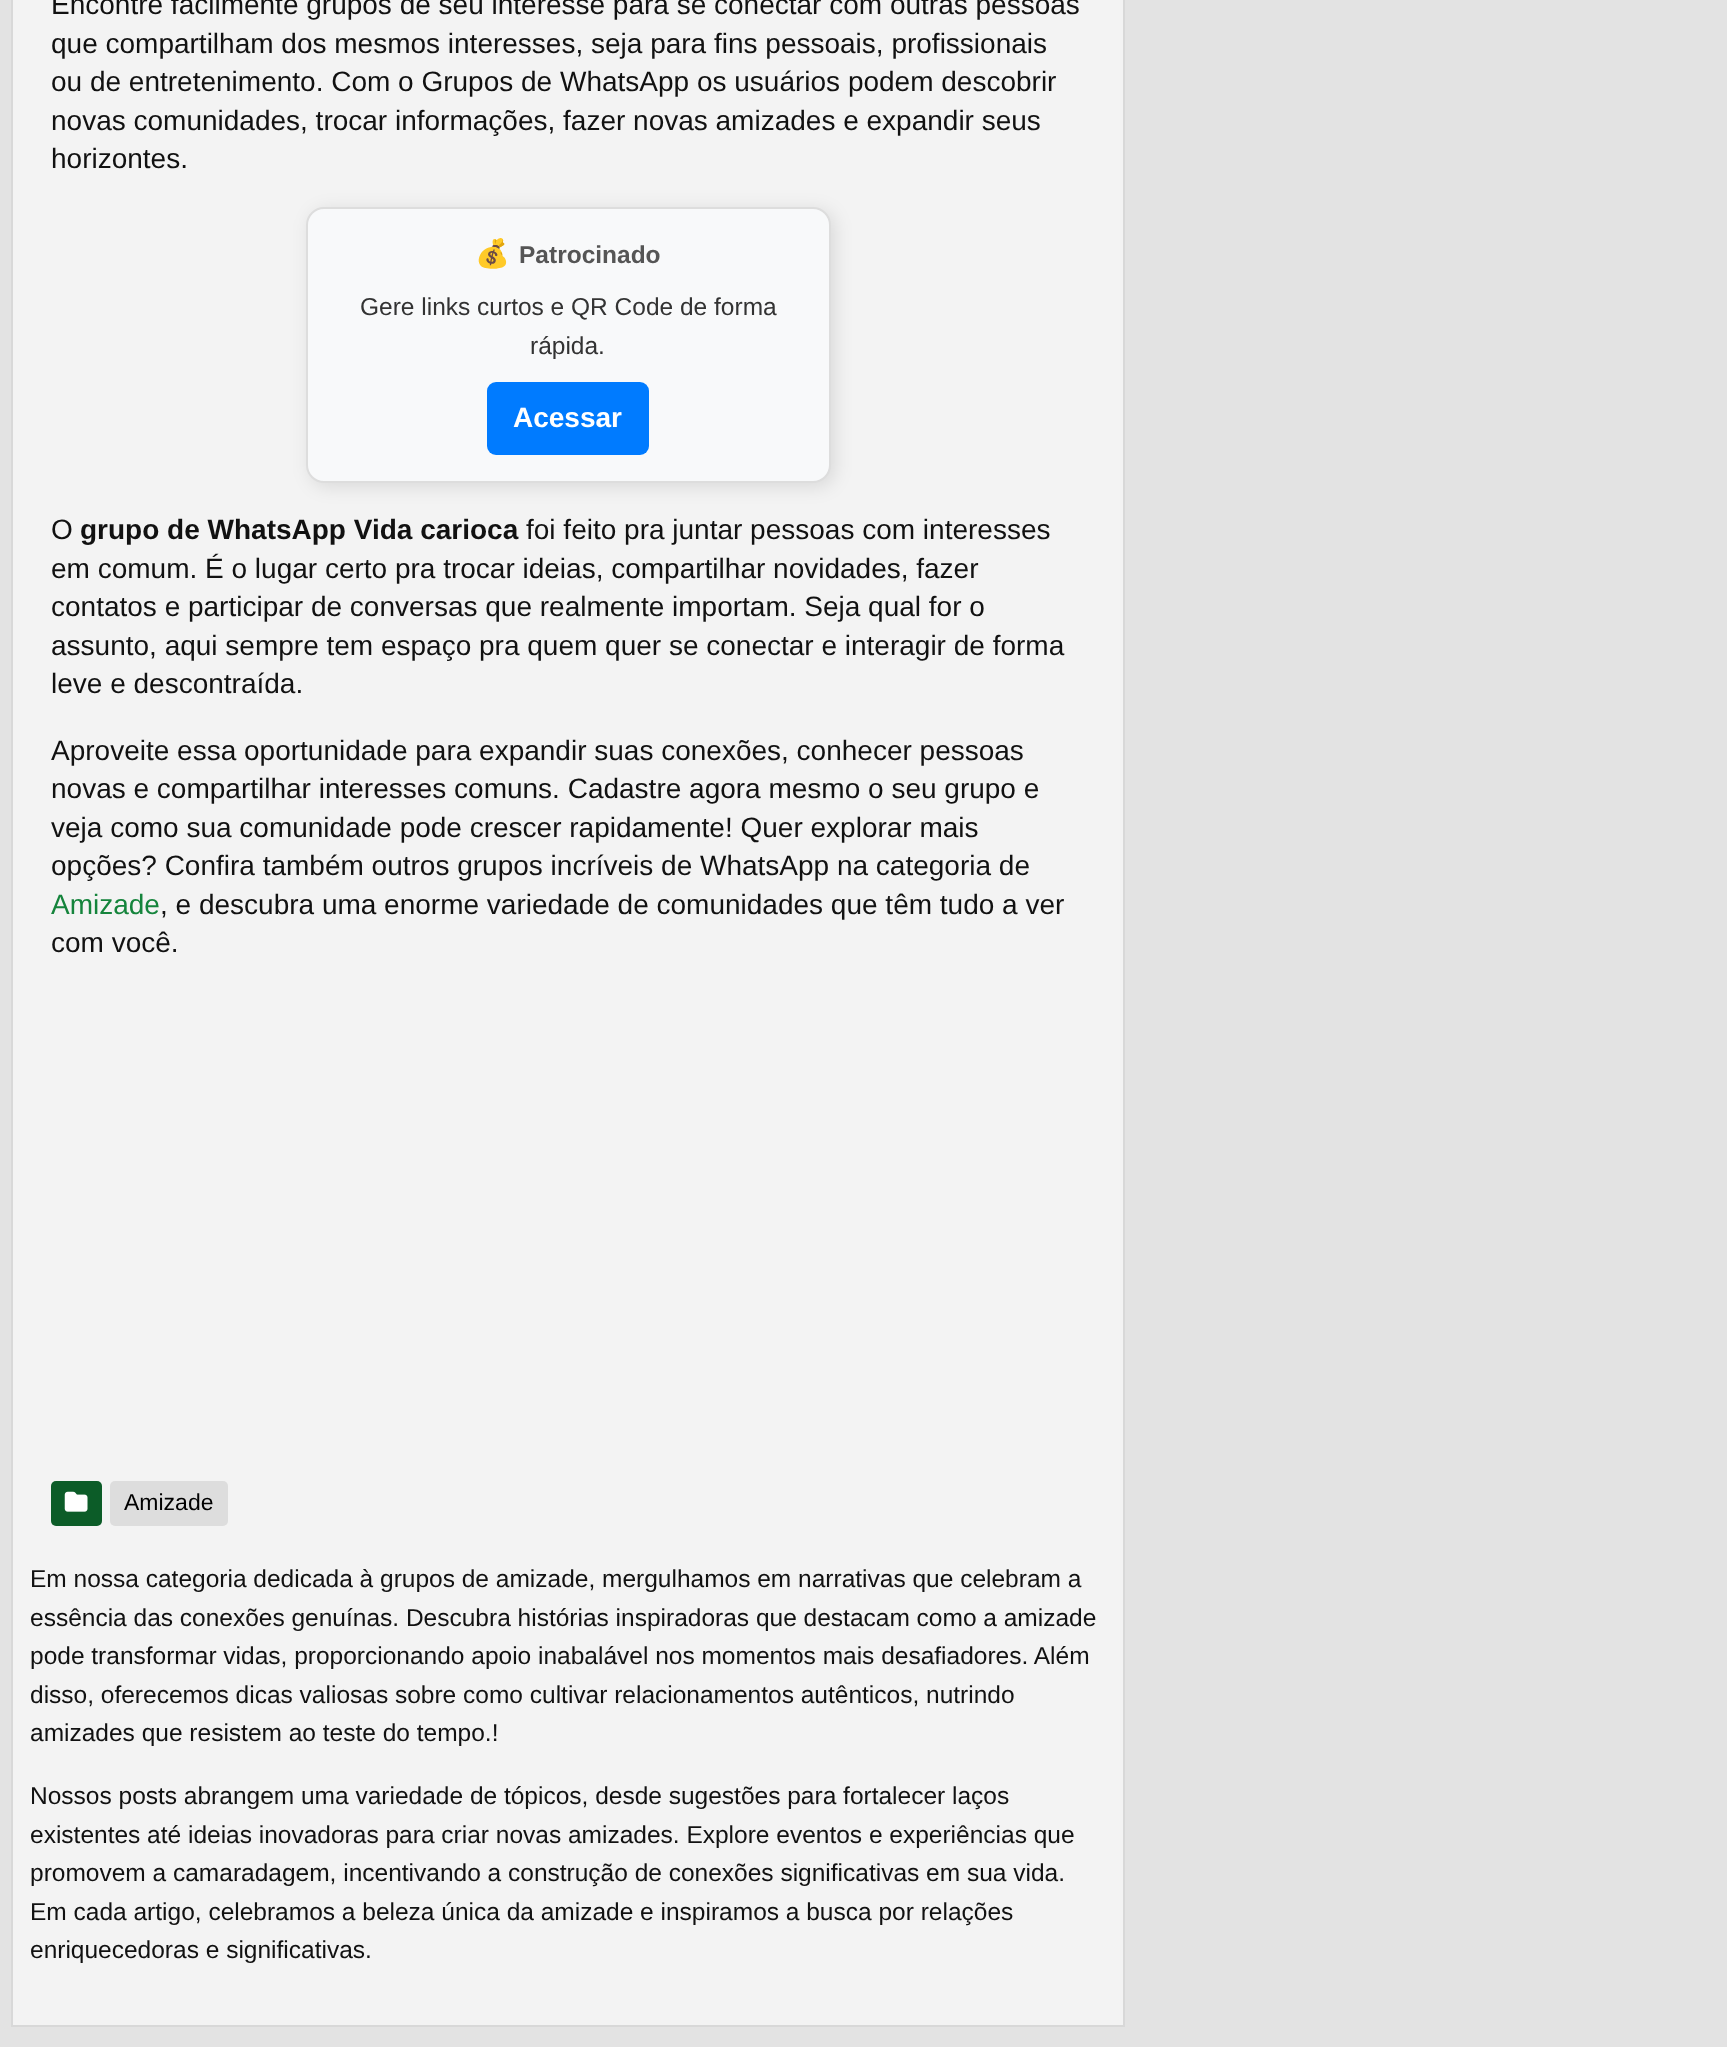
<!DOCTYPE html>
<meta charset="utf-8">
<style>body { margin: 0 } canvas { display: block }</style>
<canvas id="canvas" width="1727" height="2047"></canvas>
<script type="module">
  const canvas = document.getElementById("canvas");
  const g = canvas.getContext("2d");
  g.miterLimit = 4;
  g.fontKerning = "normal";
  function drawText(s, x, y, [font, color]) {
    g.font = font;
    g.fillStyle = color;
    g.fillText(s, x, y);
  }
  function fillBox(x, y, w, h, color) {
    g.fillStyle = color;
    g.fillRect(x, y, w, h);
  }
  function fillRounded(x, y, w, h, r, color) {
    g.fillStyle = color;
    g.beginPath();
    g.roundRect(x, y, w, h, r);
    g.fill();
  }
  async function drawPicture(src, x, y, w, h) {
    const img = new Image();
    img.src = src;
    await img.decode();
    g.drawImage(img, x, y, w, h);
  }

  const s1 = ["28px Liberation Sans", "#111111"];
  const s2 = ["bold 28px Noto Color Emoji", "#555555"];
  const s3 = ["bold 24.5px Liberation Sans", "#555555"];
  const s4 = ["24.5px Liberation Sans", "#333333"];
  const s5 = ["bold 28px Liberation Sans", "#FFFFFF"];
  const s6 = ["bold 28px Liberation Sans", "#111111"];
  const s7 = ["28px Liberation Sans", "#15843C"];
  const s8 = ["23px Liberation Sans", "#000000"];
  const s9 = ["24.5px Liberation Sans", "#111111"];

  fillBox(0, 0, 1727, 2047, "#E3E3E3");
  g.fillStyle = "#F3F3F3";
  g.beginPath();
  g.rect(12, -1, 1112, 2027);
  g.fill();
  g.strokeStyle = "#D8D8D8";
  g.lineWidth = 2;
  g.stroke();
  drawText("Encontre facilmente grupos de seu interesse para se conectar com outras pessoas", 51, 14, s1);
  drawText("que compartilham dos mesmos interesses, seja para fins pessoais, profissionais", 51, 53, s1);
  drawText("ou de entretenimento. Com o Grupos de WhatsApp os usuários podem descobrir", 51, 91, s1);
  drawText("novas comunidades, trocar informações, fazer novas amizades e expandir seus", 51, 130, s1);
  drawText("horizontes.", 51, 168, s1);
  g.fillStyle = "rgba(0, 0, 0, 0.1)";
  g.filter = "blur(9px)";
  g.beginPath();
  g.roundRect(310, 210, 525, 277, 18);
  g.fill();
  g.filter = "none";
  g.fillStyle = "#F8F9FA";
  g.beginPath();
  g.roundRect(307, 208, 523, 274, 17);
  g.fill();
  g.strokeStyle = "#DDDDDD";
  g.stroke();
  drawText("💰", 475, 263, s2);
  drawText("Patrocinado", 519, 263, s3);
  drawText("Gere links curtos e QR Code de forma", 360, 315, s4);
  drawText("rápida.", 530, 354, s4);
  fillRounded(487, 382, 162, 73, 9, "#007BFF");
  drawText("Acessar", 513, 427, s5);
  drawText("O", 51, 539, s1);
  drawText("grupo de WhatsApp Vida carioca", 80, 539, s6);
  drawText("foi feito pra juntar pessoas com interesses", 526, 539, s1);
  drawText("em comum. É o lugar certo pra trocar ideias, compartilhar novidades, fazer", 51, 578, s1);
  drawText("contatos e participar de conversas que realmente importam. Seja qual for o", 51, 616, s1);
  drawText("assunto, aqui sempre tem espaço pra quem quer se conectar e interagir de forma", 51, 655, s1);
  drawText("leve e descontraída.", 51, 693, s1);
  drawText("Aproveite essa oportunidade para expandir suas conexões, conhecer pessoas", 51, 760, s1);
  drawText("novas e compartilhar interesses comuns. Cadastre agora mesmo o seu grupo e", 51, 798, s1);
  drawText("veja como sua comunidade pode crescer rapidamente! Quer explorar mais", 51, 837, s1);
  drawText("opções? Confira também outros grupos incríveis de WhatsApp na categoria de", 51, 875, s1);
  drawText("Amizade", 51, 914, s7);
  drawText(", e descubra uma enorme variedade de comunidades que têm tudo a ver", 160, 914, s1);
  drawText("com você.", 51, 952, s1);
  fillRounded(51, 1481, 51, 45, 5, "#0C5C28");
  await drawPicture("pic1.png", 64, 1491, 24, 21);
  fillRounded(110, 1481, 118, 45, 5, "#DDDDDD");
  drawText("Amizade", 124, 1510, s8);
  drawText("Em nossa categoria dedicada à grupos de amizade, mergulhamos em narrativas que celebram a", 30, 1587, s9);
  drawText("essência das conexões genuínas. Descubra histórias inspiradoras que destacam como a amizade", 30, 1626, s9);
  drawText("pode transformar vidas, proporcionando apoio inabalável nos momentos mais desafiadores. Além", 30, 1664, s9);
  drawText("disso, oferecemos dicas valiosas sobre como cultivar relacionamentos autênticos, nutrindo", 30, 1703, s9);
  drawText("amizades que resistem ao teste do tempo.!", 30, 1741, s9);
  drawText("Nossos posts abrangem uma variedade de tópicos, desde sugestões para fortalecer laços", 30, 1804, s9);
  drawText("existentes até ideias inovadoras para criar novas amizades. Explore eventos e experiências que", 30, 1843, s9);
  drawText("promovem a camaradagem, incentivando a construção de conexões significativas em sua vida.", 30, 1881, s9);
  drawText("Em cada artigo, celebramos a beleza única da amizade e inspiramos a busca por relações", 30, 1920, s9);
  drawText("enriquecedoras e significativas.", 30, 1958, s9);
</script>
